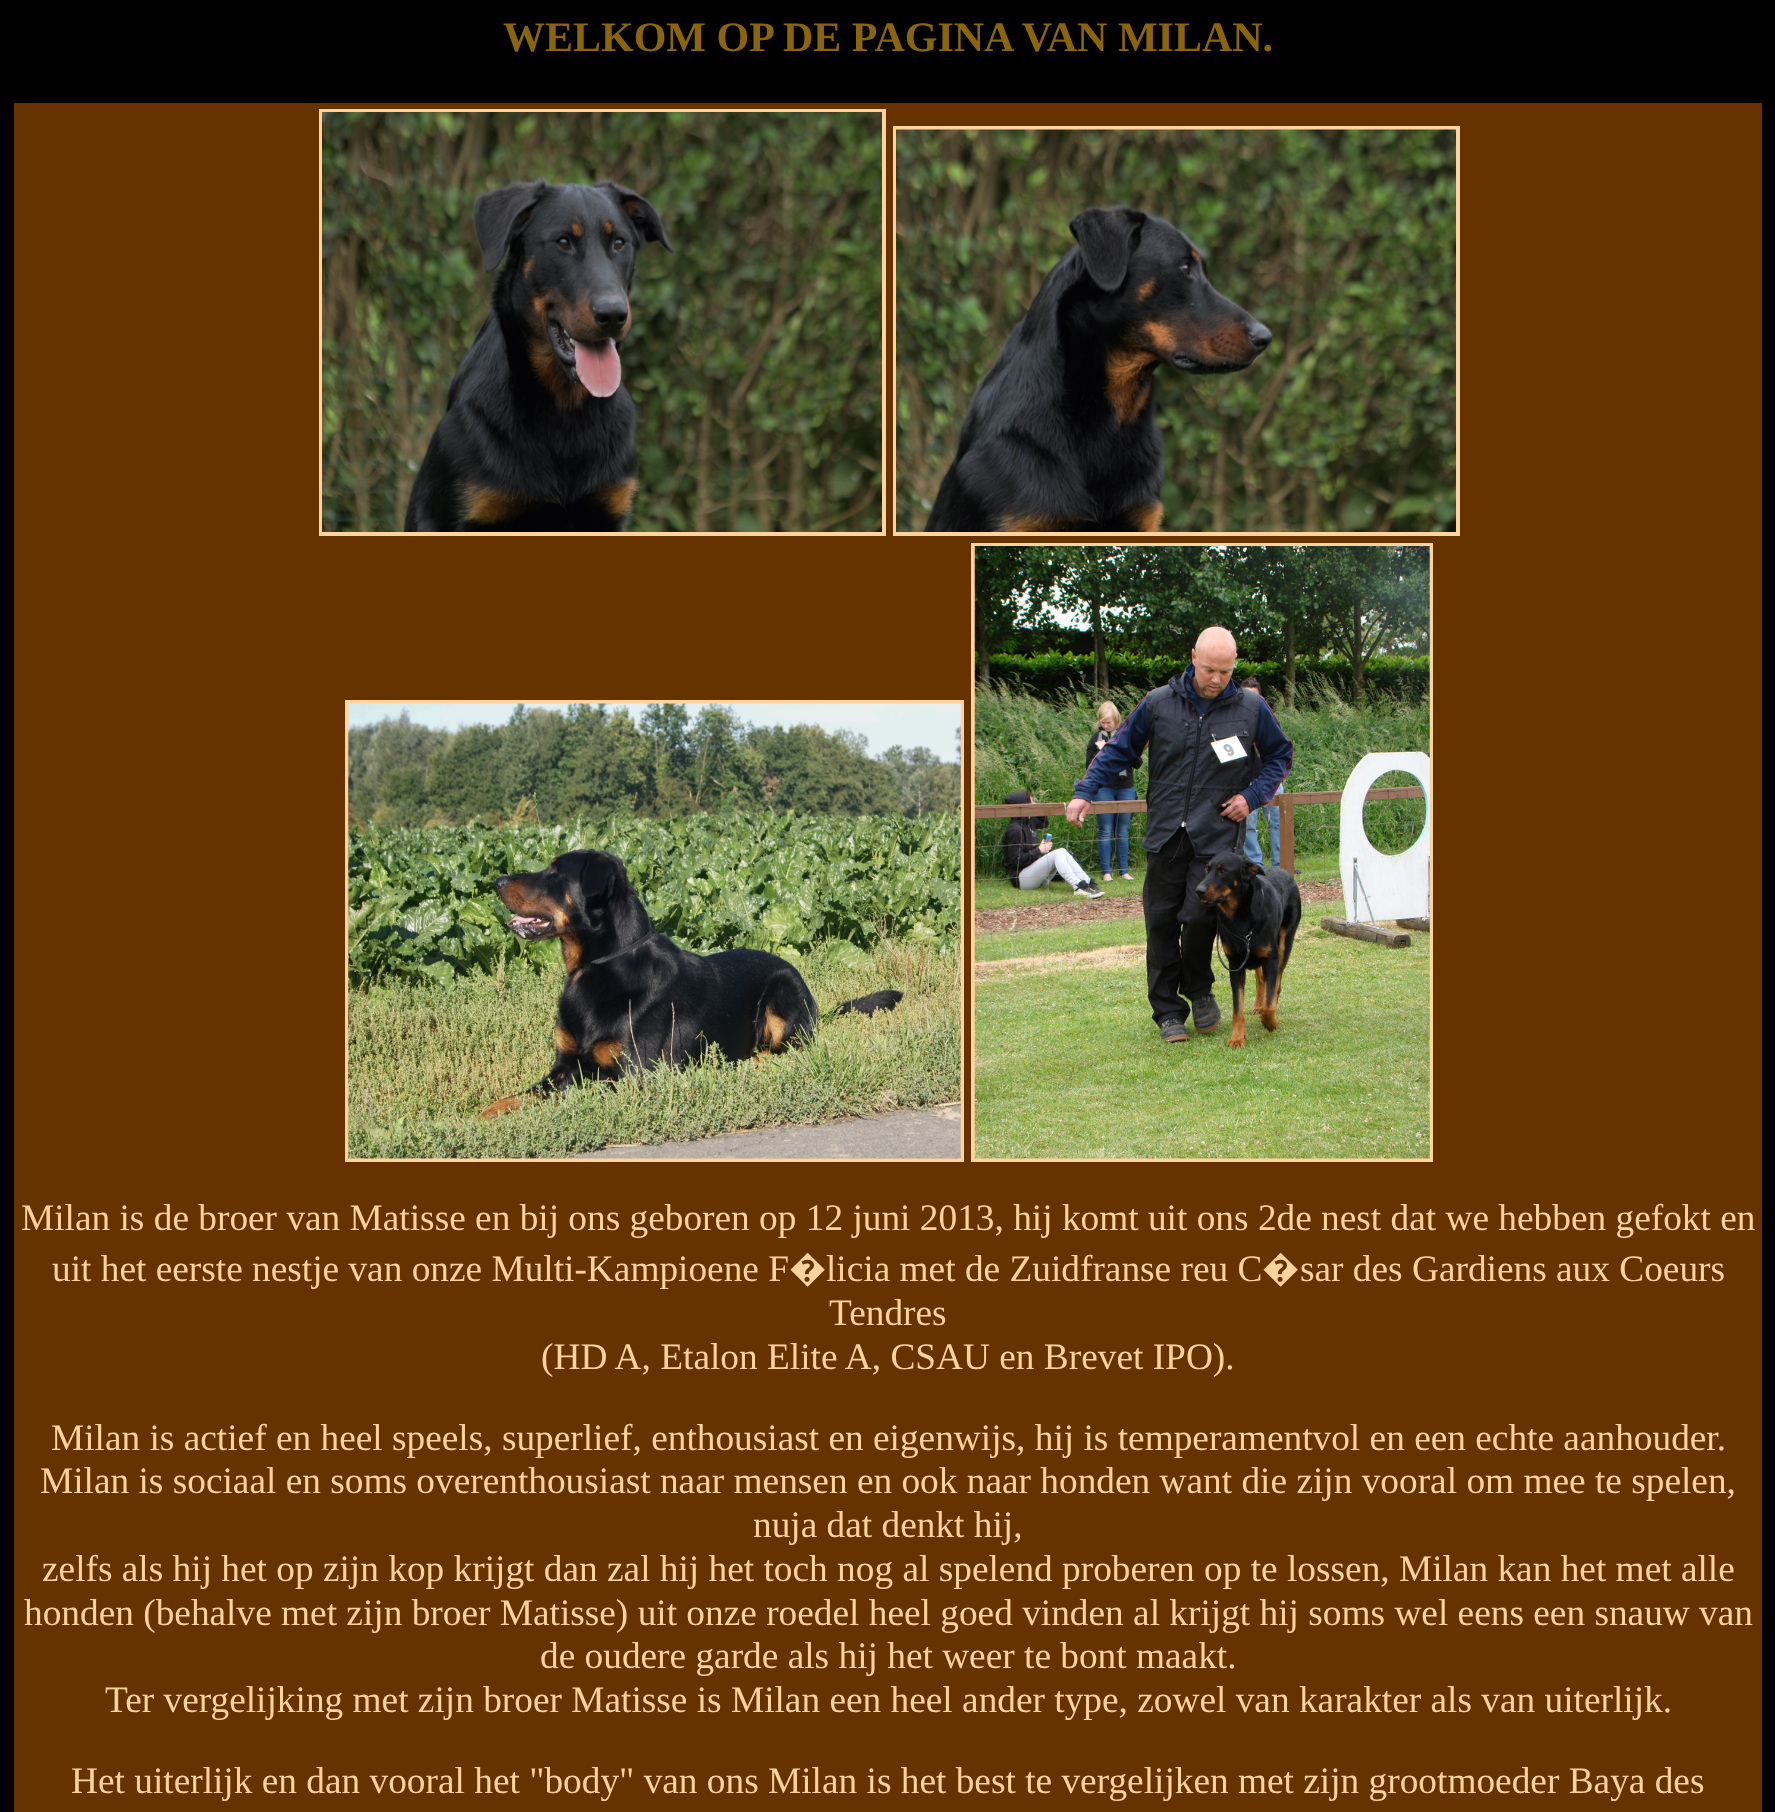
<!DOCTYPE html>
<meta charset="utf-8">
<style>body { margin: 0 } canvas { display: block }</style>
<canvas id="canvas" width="1775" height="1812"></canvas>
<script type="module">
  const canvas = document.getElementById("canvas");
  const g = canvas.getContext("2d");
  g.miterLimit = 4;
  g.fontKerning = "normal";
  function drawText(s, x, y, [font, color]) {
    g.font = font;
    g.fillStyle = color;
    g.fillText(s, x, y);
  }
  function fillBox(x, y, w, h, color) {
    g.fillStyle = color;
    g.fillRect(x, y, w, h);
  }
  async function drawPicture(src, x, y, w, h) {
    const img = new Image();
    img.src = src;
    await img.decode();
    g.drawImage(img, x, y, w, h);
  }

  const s1 = ["bold 42px Liberation Serif", "#8B6508"];
  const s2 = ["37.35px Liberation Serif", "#FFD39B"];
  const s3 = ["37.35px Noto Sans", "#FFD39B"];

  fillBox(0, 0, 1775, 1812, "#000000");
  drawText("WELKOM OP DE PAGINA VAN MILAN.", 503, 51, s1);
  fillBox(14, 103, 1748, 1709, "#663300");
  g.strokeStyle = "#FFD39B";
  g.lineWidth = 4;
  g.strokeRect(321, 111, 563, 423);
  await drawPicture("pic1.png", 322, 112, 560, 420);
  g.strokeRect(895, 128, 563, 406);
  await drawPicture("pic2.png", 896, 129, 560, 403);
  g.strokeRect(973, 545, 458, 615);
  g.strokeRect(347, 702, 615, 458);
  await drawPicture("pic3.png", 974, 546, 456, 613);
  await drawPicture("pic4.png", 348, 703, 613, 456);
  drawText("Milan is de broer van Matisse en bij ons geboren op 12 juni 2013, hij komt uit ons 2de nest dat we hebben gefokt en", 21, 1230, s2);
  drawText("uit het eerste nestje van onze Multi-Kampioene F", 52, 1281, s2);
  drawText("�", 789, 1281, s3);
  drawText("licia met de Zuidfranse reu C", 826, 1281, s2);
  drawText("�", 1262, 1281, s3);
  drawText("sar des Gardiens aux Coeurs", 1300, 1281, s2);
  drawText("Tendres", 829, 1325, s2);
  drawText("(HD A, Etalon Elite A, CSAU en Brevet IPO).", 541, 1369, s2);
  drawText("Milan is actief en heel speels, superlief, enthousiast en eigenwijs, hij is temperamentvol en een echte aanhouder.", 51, 1450, s2);
  drawText("Milan is sociaal en soms overenthousiast naar mensen en ook naar honden want die zijn vooral om mee te spelen,", 40, 1493, s2);
  drawText("nuja dat denkt hij,", 753, 1537, s2);
  drawText("zelfs als hij het op zijn kop krijgt dan zal hij het toch nog al spelend proberen op te lossen, Milan kan het met alle", 42, 1581, s2);
  drawText("honden (behalve met zijn broer Matisse) uit onze roedel heel goed vinden al krijgt hij soms wel eens een snauw van", 24, 1625, s2);
  drawText("de oudere garde als hij het weer te bont maakt.", 540, 1668, s2);
  drawText("Ter vergelijking met zijn broer Matisse is Milan een heel ander type, zowel van karakter als van uiterlijk.", 105, 1712, s2);
  drawText("Het uiterlijk en dan vooral het \"body\" van ons Milan is het best te vergelijken met zijn grootmoeder Baya des", 71, 1793, s2);
</script>
